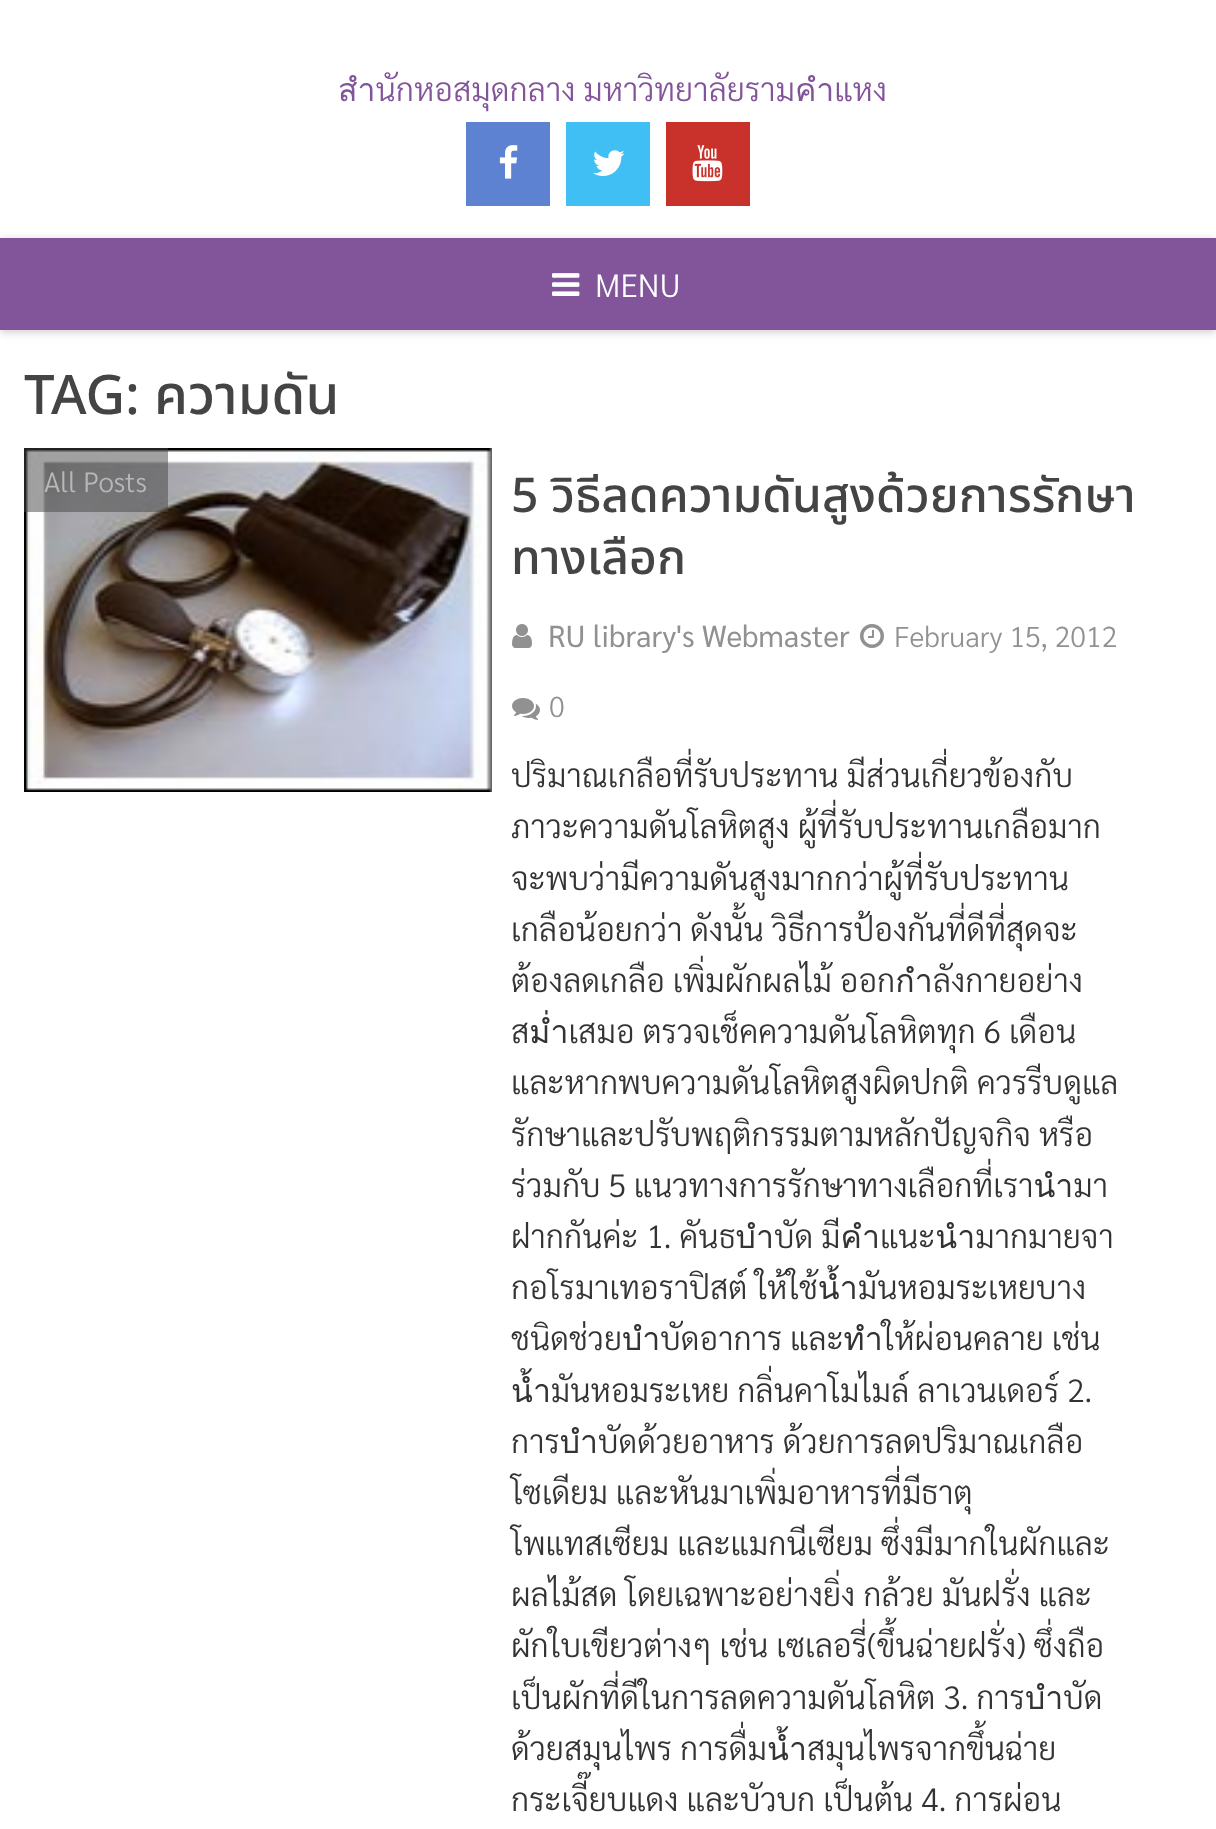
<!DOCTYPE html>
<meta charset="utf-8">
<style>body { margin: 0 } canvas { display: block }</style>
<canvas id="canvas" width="1216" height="1829"></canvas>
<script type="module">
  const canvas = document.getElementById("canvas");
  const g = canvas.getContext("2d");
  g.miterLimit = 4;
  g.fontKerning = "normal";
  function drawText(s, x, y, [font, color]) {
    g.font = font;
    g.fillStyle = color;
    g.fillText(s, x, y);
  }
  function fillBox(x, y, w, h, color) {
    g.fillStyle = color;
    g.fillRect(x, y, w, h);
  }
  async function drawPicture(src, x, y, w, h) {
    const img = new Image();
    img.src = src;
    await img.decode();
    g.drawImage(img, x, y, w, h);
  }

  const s1 = ["300 32px Sarabun", "#82549A"];
  const s2 = ["300 32px Sarabun", "#FFFFFF"];
  const s3 = ["500 54.5px Noto Sans", "#444444"];
  const s4 = ["500 54.5px Noto Sans Thai", "#444444"];
  const s5 = ["300 28px Sarabun", "#B9B8B9"];
  const s6 = ["500 48px Noto Sans", "#444444"];
  const s7 = ["500 48px Noto Sans Thai", "#444444"];
  const s8 = ["30.25px Sarabun", "#919191"];
  const s9 = ["300 28.75px Sarabun", "#919191"];
  const s10 = ["300 32px Sarabun", "#333333"];

  fillBox(0, 0, 1216, 1829, "#FFFFFF");
  drawText("สำนักหอสมุดกลาง มหาวิทยาลัยรามคำแหง", 338, 101, s1);
  fillBox(466, 122, 84, 84, "#5D82D1");
  await drawPicture("pic1.png", 499, 145, 19, 34);
  fillBox(566, 122, 84, 84, "#40BFF5");
  await drawPicture("pic2.png", 593, 150, 32, 26);
  fillBox(666, 122, 84, 84, "#C9322B");
  await drawPicture("pic3.png", 692, 145, 31, 37);
  g.fillStyle = "rgba(0, 0, 0, 0.2)";
  g.filter = "blur(5px)";
  g.beginPath();
  g.rect(0, 240, 1216, 92);
  g.fill();
  g.filter = "none";
  fillBox(0, 238, 1216, 92, "#82549A");
  await drawPicture("pic4.png", 552, 273, 28, 23);
  drawText("MENU", 595, 297, s2);
  drawText("TAG:", 24, 414, s3);
  drawText("ความดัน", 154, 414, s4);
  await drawPicture("pic5.png", 24, 448, 468, 344);
  fillBox(24, 448, 144, 64, "rgba(68, 68, 68, 0.5)");
  drawText("All Posts", 44, 492, s5);
  drawText("5", 511, 512, s6);
  drawText("วิธีลดความดันสูงด้วยการรักษา", 551, 512, s7);
  drawText("ทางเลือก", 511, 574, s7);
  await drawPicture("pic6.png", 512, 624, 20, 24);
  drawText("RU library's Webmaster", 548, 647, s8);
  await drawPicture("pic7.png", 860, 624, 24, 24);
  drawText("February 15, 2012", 894, 647, s9);
  await drawPicture("pic8.png", 512, 698, 28, 22);
  drawText("0", 549, 717, s9);
  drawText("ปริมาณเกลือที่รับประทาน มีส่วนเกี่ยวข้องกับ", 511, 787, s10);
  drawText("ภาวะความดันโลหิตสูง ผู้ที่รับประทานเกลือมาก", 511, 838, s10);
  drawText("จะพบว่ามีความดันสูงมากกว่าผู้ที่รับประทาน", 511, 890, s10);
  drawText("เกลือน้อยกว่า ดังนั้น วิธีการป้องกันที่ดีที่สุดจะ", 511, 941, s10);
  drawText("ต้องลดเกลือ เพิ่มผักผลไม้ ออกกำลังกายอย่าง", 511, 992, s10);
  drawText("สม่ำเสมอ ตรวจเช็คความดันโลหิตทุก 6 เดือน", 511, 1043, s10);
  drawText("และหากพบความดันโลหิตสูงผิดปกติ ควรรีบดูแล", 511, 1094, s10);
  drawText("รักษาและปรับพฤติกรรมตามหลักปัญจกิจ หรือ", 511, 1146, s10);
  drawText("ร่วมกับ 5 แนวทางการรักษาทางเลือกที่เรานำมา", 511, 1197, s10);
  drawText("ฝากกันค่ะ 1. คันธบำบัด มีคำแนะนำมากมายจา", 511, 1248, s10);
  drawText("กอโรมาเทอราปิสต์ ให้ใช้น้ำมันหอมระเหยบาง", 511, 1299, s10);
  drawText("ชนิดช่วยบำบัดอาการ และทำให้ผ่อนคลาย เช่น", 511, 1350, s10);
  drawText("น้ำมันหอมระเหย กลิ่นคาโมไมล์ ลาเวนเดอร์ 2.", 511, 1402, s10);
  drawText("การบำบัดด้วยอาหาร ด้วยการลดปริมาณเกลือ", 511, 1453, s10);
  drawText("โซเดียม และหันมาเพิ่มอาหารที่มีธาตุ", 511, 1504, s10);
  drawText("โพแทสเซียม และแมกนีเซียม ซึ่งมีมากในผักและ", 511, 1555, s10);
  drawText("ผลไม้สด โดยเฉพาะอย่างยิ่ง กล้วย มันฝรั่ง และ", 511, 1606, s10);
  drawText("ผักใบเขียวต่างๆ เช่น เซเลอรี่(ขึ้นฉ่ายฝรั่ง) ซึ่งถือ", 511, 1657, s10);
  drawText("เป็นผักที่ดีในการลดความดันโลหิต 3. การบำบัด", 511, 1709, s10);
  drawText("ด้วยสมุนไพร การดื่มน้ำสมุนไพรจากขึ้นฉ่าย", 511, 1760, s10);
  drawText("กระเจี๊ยบแดง และบัวบก เป็นต้น 4. การผ่อน", 511, 1811, s10);
</script>
